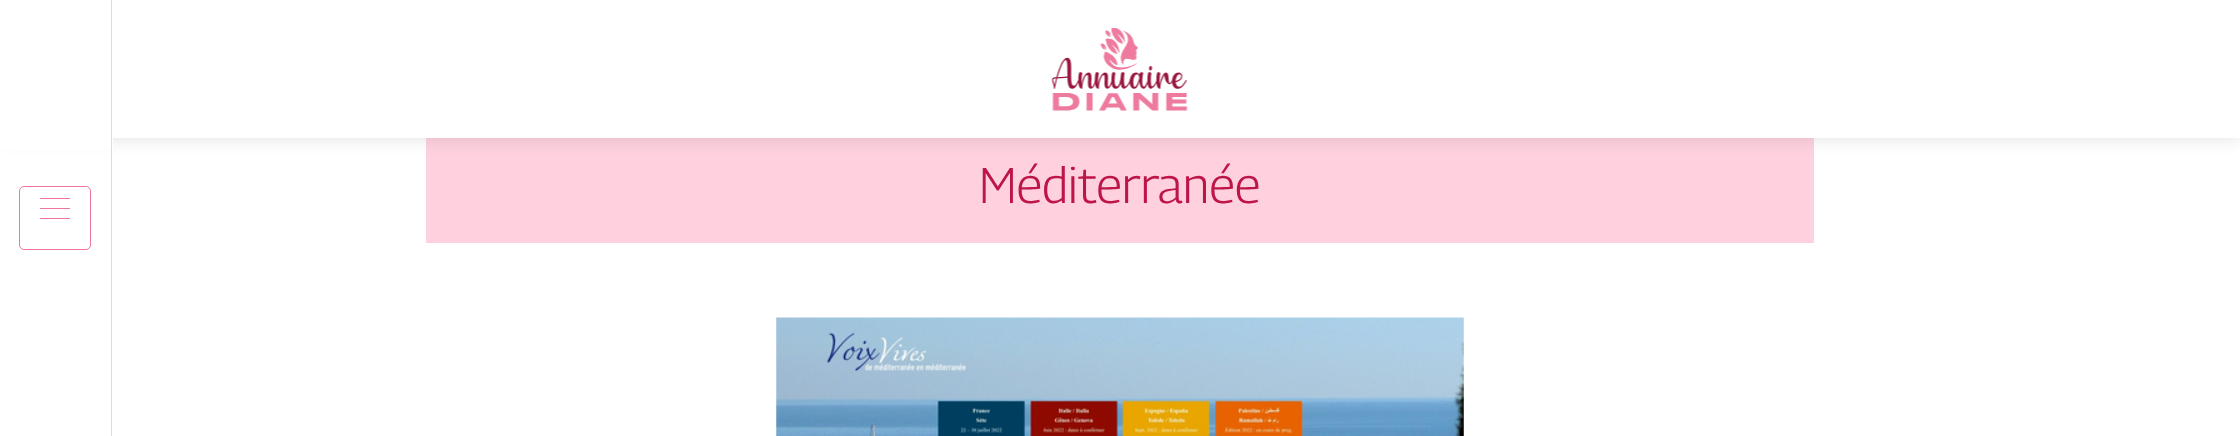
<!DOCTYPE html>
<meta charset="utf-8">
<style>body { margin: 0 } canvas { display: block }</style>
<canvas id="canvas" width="2240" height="436"></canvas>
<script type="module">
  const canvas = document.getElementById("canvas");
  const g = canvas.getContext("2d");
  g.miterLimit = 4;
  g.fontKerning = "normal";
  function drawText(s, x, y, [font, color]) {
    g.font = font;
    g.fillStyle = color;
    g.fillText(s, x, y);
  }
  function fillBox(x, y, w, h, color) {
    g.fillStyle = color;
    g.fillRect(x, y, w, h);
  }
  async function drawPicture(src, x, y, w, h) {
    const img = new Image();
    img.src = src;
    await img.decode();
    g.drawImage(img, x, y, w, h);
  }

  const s1 = ["100 50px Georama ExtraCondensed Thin", "#BD1547"];

  fillBox(0, 0, 2240, 436, "#FFFFFF");
  fillBox(426, 138, 1388, 105, "#FFD1DF");
  g.fillStyle = "rgba(0, 0, 0, 0.1)";
  g.filter = "blur(8px)";
  g.beginPath();
  g.rect(0, 3, 2240, 137);
  g.fill();
  g.filter = "none";
  fillBox(113, 0, 2127, 138, "#FFFFFF");
  fillBox(0, 0, 113, 150, "#FFFFFF");
  fillBox(111, 0, 1, 436, "#DDDDDD");
  g.beginPath();
  g.roundRect(19.5, 186.5, 71, 63, 4.5);
  g.strokeStyle = "#F1769B";
  g.stroke();
  fillBox(40, 198, 30, 1, "#F1769B");
  fillBox(40, 208, 30, 1, "#F1769B");
  fillBox(40, 218, 30, 1, "#F1769B");
  await drawPicture("pic1.png", 1051, 28, 137, 83);
  drawText("Méditerranée", 979, 203, s1);
  await drawPicture("pic2.png", 776, 317, 688, 119);
</script>
